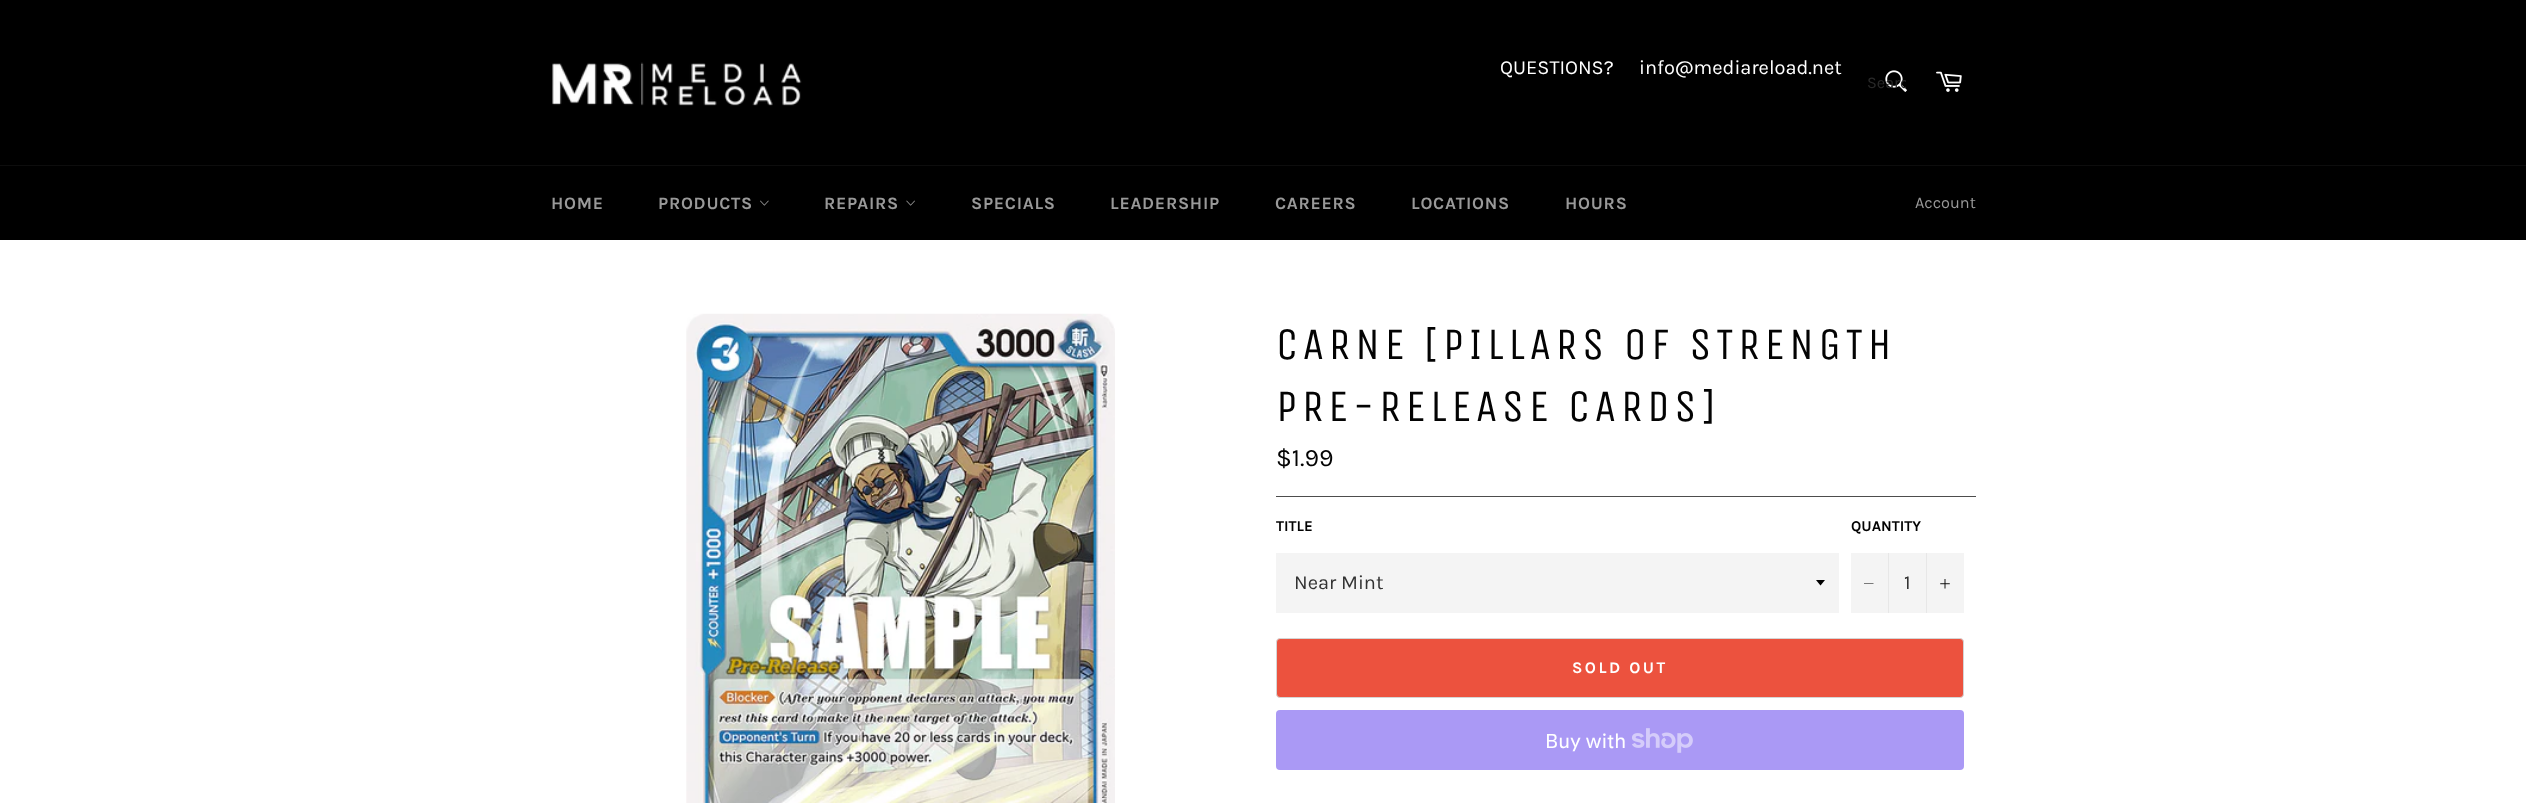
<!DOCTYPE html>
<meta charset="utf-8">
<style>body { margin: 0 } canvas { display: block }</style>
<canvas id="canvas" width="2526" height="803"></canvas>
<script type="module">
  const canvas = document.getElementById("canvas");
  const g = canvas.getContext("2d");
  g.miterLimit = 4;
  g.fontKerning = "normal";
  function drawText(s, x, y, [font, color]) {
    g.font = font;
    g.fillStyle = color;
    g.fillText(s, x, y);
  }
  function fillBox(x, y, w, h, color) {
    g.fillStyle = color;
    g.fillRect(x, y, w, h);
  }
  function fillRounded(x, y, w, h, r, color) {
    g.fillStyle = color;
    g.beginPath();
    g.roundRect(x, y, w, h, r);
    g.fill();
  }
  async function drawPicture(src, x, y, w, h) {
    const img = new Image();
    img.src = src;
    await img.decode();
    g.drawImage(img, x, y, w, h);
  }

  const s1 = ["20px Karla", "#FFFFFF"];
  const s2 = ["16.25px Karla", "#292929"];
  const s3 = ["bold 17.5px Karla", "#999999"];
  const s4 = ["16.25px Karla", "#999999"];
  const s5 = ["45px Unica One", "#030303"];
  const s6 = ["25px Karla", "#030303"];
  const s7 = ["bold 15px Karla", "#030303"];
  const s8 = ["20px Karla", "#333333"];
  const s9 = ["bold 16.25px Karla", "#FFFFFF"];
  const s10 = ["20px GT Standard", "#FFFFFF"];

  fillBox(0, 0, 2526, 803, "#000000");
  await drawPicture("pic1.png", 552, 62, 250, 44);
  drawText("QUESTIONS?", 1500, 74, s1);
  drawText("info@mediareload.net", 1639, 74, s1);
  await drawPicture("pic2.png", 1885, 70, 22, 22);
  g.save();
  g.beginPath();
  g.rect(1866, 74, 40, 19);
  g.clip();
  drawText("Searc", 1867, 88, s2);
  g.restore();
  await drawPicture("pic3.png", 1936, 71, 26, 21);
  fillBox(0, 165, 2526, 1, "#0D0D0D");
  g.letterSpacing = "0.75px";
  drawText("HOME", 551, 209, s3);
  drawText("PRODUCTS", 658, 209, s3);
  await drawPicture("pic4.png", 760, 200, 9, 6);
  drawText("REPAIRS", 824, 209, s3);
  await drawPicture("pic5.png", 906, 200, 9, 6);
  drawText("SPECIALS", 971, 209, s3);
  drawText("LEADERSHIP", 1110, 209, s3);
  drawText("CAREERS", 1275, 209, s3);
  drawText("LOCATIONS", 1411, 209, s3);
  drawText("HOURS", 1565, 209, s3);
  g.letterSpacing = "0px";
  drawText("Account", 1915, 208, s4);
  fillBox(0, 240, 2526, 563, "#FFFFFF");
  await drawPicture("pic6.png", 686, 313, 429, 490);
  g.letterSpacing = "4.5px";
  drawText("CARNE [PILLARS OF STRENGTH", 1276, 359, s5);
  drawText("PRE-RELEASE CARDS]", 1276, 421, s5);
  g.letterSpacing = "0px";
  drawText("$1.99", 1276, 466, s6);
  fillBox(1276, 496, 700, 1, "#4D4D4D");
  drawText("TITLE", 1276, 531, s7);
  fillBox(1276, 553, 563, 60, "#F4F4F4");
  g.fillStyle = "#000000";
  g.beginPath();
  g.moveTo(1816, 580);
  g.lineTo(1820.5, 585.5);
  g.lineTo(1825, 580);
  g.closePath();
  g.fill();
  drawText("Near Mint", 1294, 589, s8);
  drawText("QUANTITY", 1851, 531, s7);
  fillBox(1851, 553, 113, 60, "#F4F4F4");
  fillBox(1888, 553, 1, 60, "#E7E7E7");
  g.fillStyle = "#000000";
  g.beginPath();
  g.moveTo(1873.5, 583.5);
  g.lineTo(1873.5, 584);
  g.lineTo(1864, 584);
  g.lineTo(1864, 583.5);
  g.closePath();
  g.fill("evenodd");
  drawText("1", 1904, 589, s8);
  fillBox(1926, 553, 1, 60, "#E7E7E7");
  await drawPicture("pic7.png", 1940, 579, 10, 10);
  g.fillStyle = "#EC523E";
  g.beginPath();
  g.roundRect(1276.5, 638.5, 687, 59, 3.5);
  g.fill();
  g.strokeStyle = "#D5D5D5";
  g.stroke();
  g.letterSpacing = "2.5px";
  drawText("SOLD OUT", 1572, 673, s9);
  fillRounded(1276, 710, 688, 60, 4, "#AA99F5");
  g.letterSpacing = "0px";
  drawText("Buy with", 1545, 748, s10);
  await drawPicture("pic8.png", 1632, 728, 61, 25);
</script>
